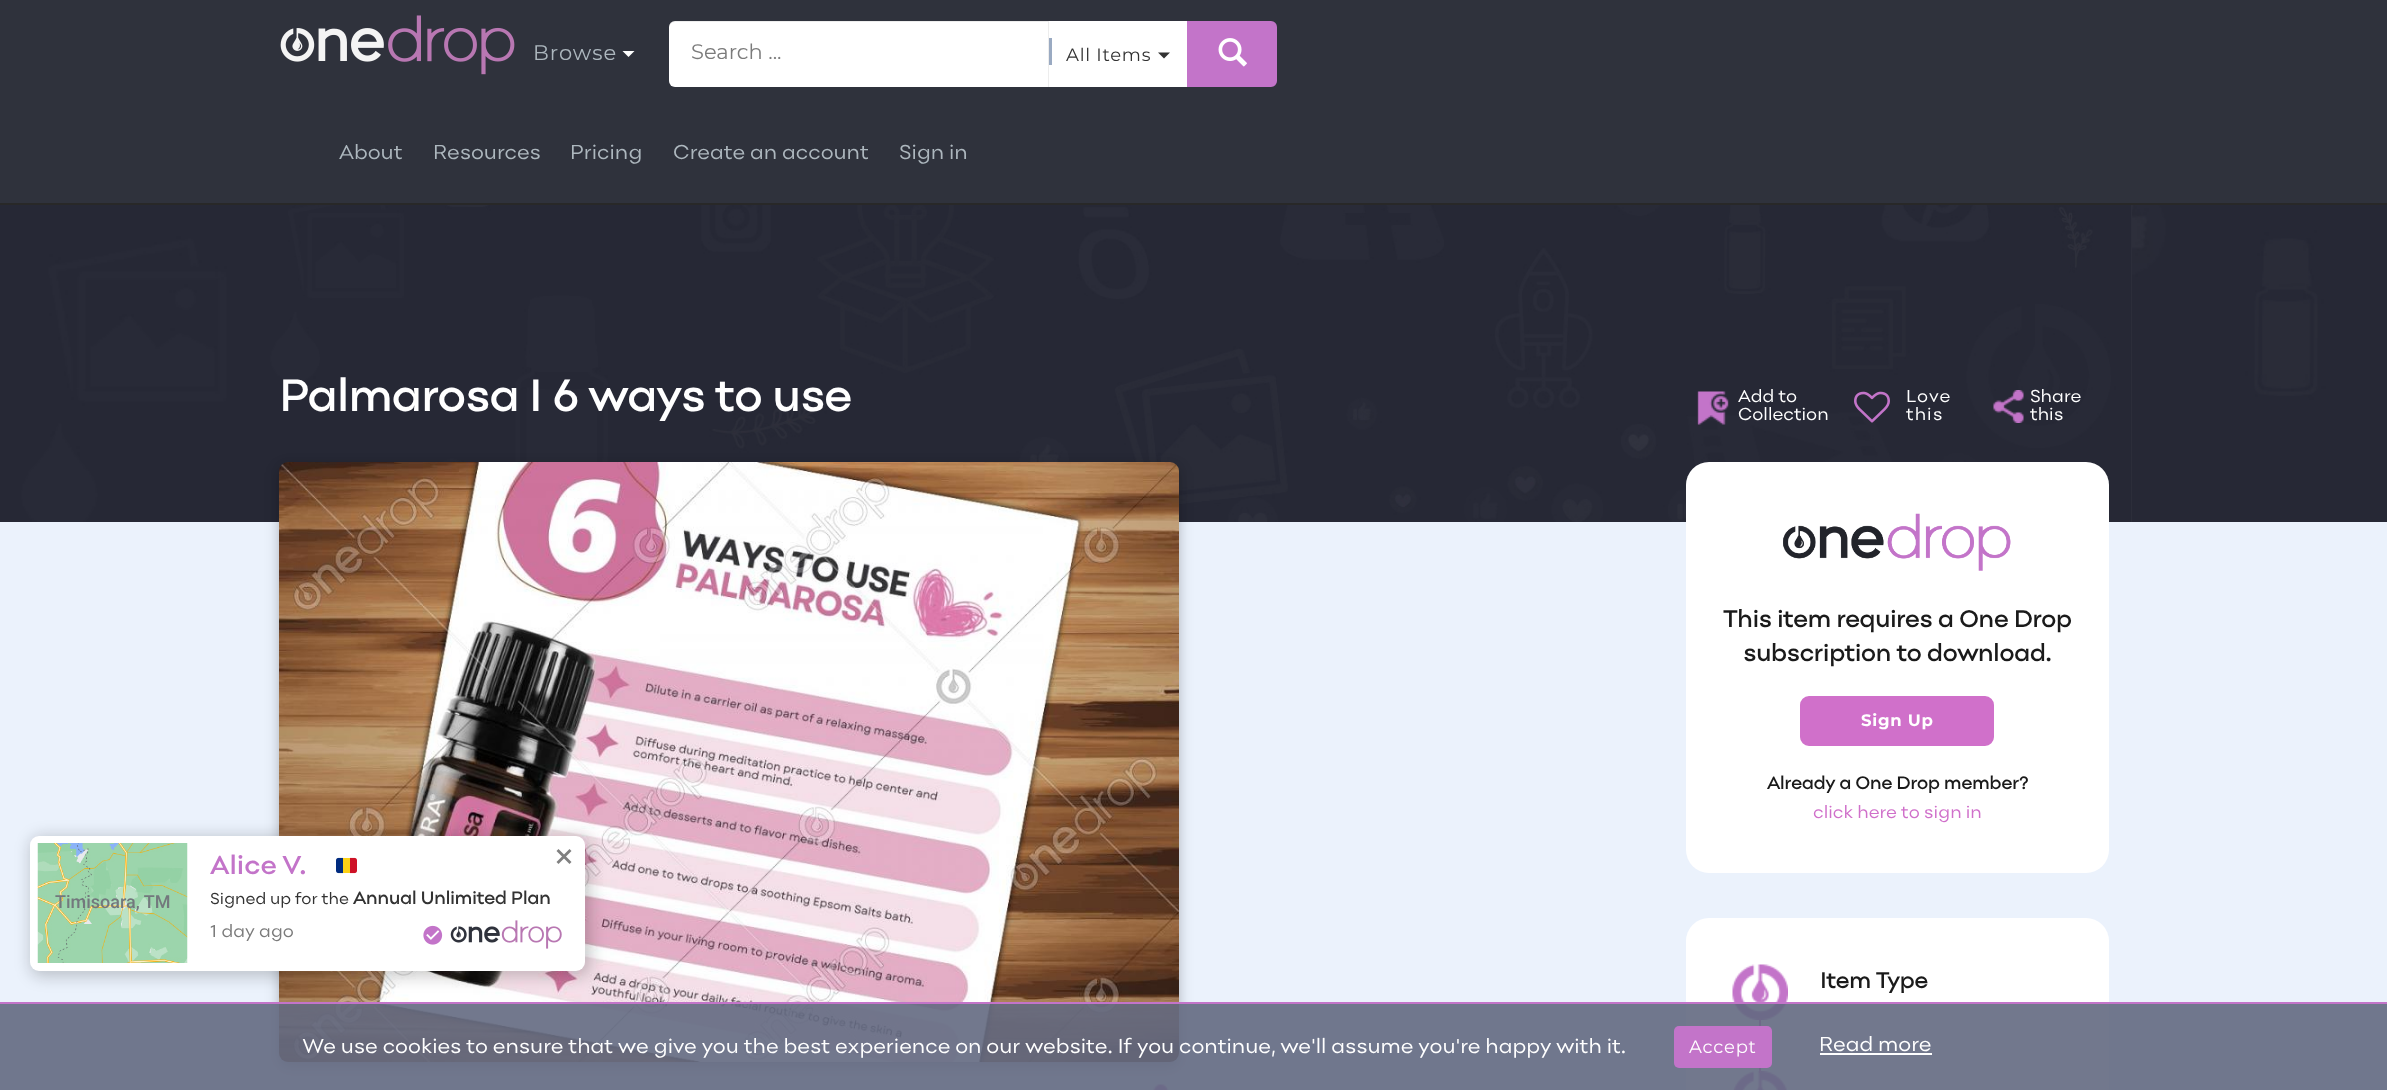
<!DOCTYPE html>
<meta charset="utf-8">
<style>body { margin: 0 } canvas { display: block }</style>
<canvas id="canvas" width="2387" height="1090"></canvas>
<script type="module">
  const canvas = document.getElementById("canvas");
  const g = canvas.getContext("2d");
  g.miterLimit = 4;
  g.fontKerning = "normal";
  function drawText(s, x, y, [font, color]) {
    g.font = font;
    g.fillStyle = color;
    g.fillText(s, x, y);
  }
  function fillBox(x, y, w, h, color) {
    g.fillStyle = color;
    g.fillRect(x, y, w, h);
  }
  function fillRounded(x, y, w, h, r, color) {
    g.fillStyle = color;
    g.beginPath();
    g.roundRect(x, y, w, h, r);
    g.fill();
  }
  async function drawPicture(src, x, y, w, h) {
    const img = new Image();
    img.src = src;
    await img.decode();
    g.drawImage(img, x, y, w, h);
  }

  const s1 = ["21px Montserrat", "#ADB7BE"];
  const s2 = ["21px Montserrat", "#7B7B7B"];
  const s3 = ["18px Montserrat", "#323232"];
  const s4 = ["21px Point", "#ADB7BE"];
  const s5 = ["bold 45px Point", "#FFFFFF"];
  const s6 = ["18px Point", "#FFFFFF"];
  const s7 = ["bold 24px Point", "#1A1A1A"];
  const s8 = ["bold 16.5px Montserrat", "#FFFFFF"];
  const s9 = ["bold 18px Point", "#1A1A1A"];
  const s10 = ["18px Point", "#D070CA"];
  const s11 = ["bold 22.5px Point", "#1A1A1A"];
  const s12 = ["21px Point", "#FFFFFF"];
  const s13 = ["18px Montserrat", "#FFFFFF"];
  const s14 = ["500 18px Roboto", "#73787D"];
  const s15 = ["600 27px Point", "#C374C9"];
  const s16 = ["16.5px Point", "#323232"];
  const s17 = ["bold 18px Point", "#323232"];
  const s18 = ["18px Point", "#7B7B7B"];

  fillBox(0, 0, 2387, 1090, "#FFFFFF");
  fillBox(0, 0, 2387, 203, "#2F323C");
  fillBox(0, 203, 2387, 2, "#282828");
  await drawPicture("pic1.png", 280, 15, 235, 60);
  g.letterSpacing = "1px";
  drawText("Browse", 533, 60, s1);
  g.fillStyle = "#FFFFFF";
  g.beginPath();
  g.moveTo(622.5, 51);
  g.lineTo(634.5, 51);
  g.lineTo(628.5, 57);
  g.closePath();
  g.fill();
  g.beginPath();
  g.roundRect(669, 21, 380, 66, [6, 0, 0, 6]);
  g.fill();
  g.fillStyle = "rgba(0, 0, 0, 0.07)";
  g.beginPath();
  g.moveTo(675, 22);
  g.lineTo(1048, 22);
  g.lineTo(1048, 87);
  g.lineTo(1049, 87);
  g.lineTo(1049, 21);
  g.lineTo(675, 21);
  g.bezierCurveTo(671, 21, 669, 24, 669, 28);
  g.bezierCurveTo(669, 25, 672, 22, 675, 22);
  g.closePath();
  g.fill();
  g.letterSpacing = "0px";
  drawText("Search ...", 691, 59, s2);
  fillBox(1049, 21, 138, 66, "#FFFFFF");
  fillBox(1049, 38, 3, 27, "#9AAAC2");
  g.letterSpacing = "0.75px";
  drawText("All Items", 1066, 61, s3);
  g.fillStyle = "#333333";
  g.beginPath();
  g.moveTo(1158, 52.5);
  g.lineTo(1170, 52.5);
  g.lineTo(1164, 58.5);
  g.closePath();
  g.fill();
  g.fillStyle = "#C374C9";
  g.beginPath();
  g.roundRect(1188, 22, 88, 64, [0, 5, 5, 0]);
  g.fill();
  g.strokeStyle = "#C374C9";
  g.lineWidth = 2;
  g.stroke();
  await drawPicture("pic2.png", 1218, 38, 29, 29);
  g.letterSpacing = "0px";
  drawText("About", 339, 159, s4);
  drawText("Resources", 433, 159, s4);
  drawText("Pricing", 570, 159, s4);
  drawText("Create an account", 673, 159, s4);
  drawText("Sign in", 899, 159, s4);
  await drawPicture("pic3.png", 0, 205, 2387, 317);
  fillBox(2131, 205, 1, 317, "#2C2E3A");
  await drawPicture("pic4.png", 257, 205, 1874, 317);
  drawText("Palmarosa I 6 ways to use", 279, 411, s5);
  await drawPicture("pic5.png", 1697, 391, 32, 34);
  drawText("Add to", 1738, 402, s6);
  drawText("Collection", 1738, 420, s6);
  await drawPicture("pic6.png", 1854, 391, 36, 32);
  g.letterSpacing = "1px";
  drawText("Love", 1906, 402, s6);
  drawText("this", 1906, 420, s6);
  await drawPicture("pic7.png", 1993, 390, 31, 33);
  g.letterSpacing = "0px";
  drawText("Share", 2030, 402, s6);
  drawText("this", 2030, 420, s6);
  fillBox(0, 522, 2387, 568, "#EBF2FC");
  g.fillStyle = "rgba(0, 0, 0, 0.16)";
  g.filter = "blur(7.5px)";
  g.beginPath();
  g.roundRect(279, 468, 900, 600, 9);
  g.fill();
  g.filter = "none";
  g.fillStyle = "rgba(0, 0, 0, 0.1)";
  g.filter = "blur(4.5px)";
  g.beginPath();
  g.roundRect(279, 465, 900, 600, 9);
  g.fill();
  g.filter = "none";
  await drawPicture("pic8.png", 279, 462, 900, 600);
  await drawPicture("pic9.png", 1153, 1084, 16, 6);
  fillRounded(1686, 462, 423, 411, 23, "#FFFFFF");
  await drawPicture("pic10.png", 1783, 513, 228, 58);
  drawText("This item requires a One Drop", 1723, 627, s7);
  drawText("subscription to download.", 1743, 661, s7);
  g.fillStyle = "#D070CA";
  g.beginPath();
  g.roundRect(1801, 697, 192, 48, 8);
  g.fill();
  g.strokeStyle = "#D070CA";
  g.stroke();
  g.letterSpacing = "0.75px";
  drawText("Sign Up", 1861, 726, s8);
  g.letterSpacing = "0px";
  drawText("Already a One Drop member?", 1767, 789, s9);
  drawText("click here to sign in", 1813, 818, s10);
  fillRounded(1686, 918, 423, 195, 23, "#FFFFFF");
  await drawPicture("pic11.png", 1732, 964, 56, 56);
  drawText("Item Type", 1820, 988, s11);
  await drawPicture("pic12.png", 1733, 1071, 55, 19);
  fillBox(1759, 1018, 2, 55, "#D070CA");
  fillBox(0, 1004, 2387, 86, "rgba(99, 105, 129, 0.9)");
  fillBox(0, 1002, 2387, 2, "#C374C9");
  drawText("We use cookies to ensure that we give you the best experience on our website. If you continue, we'll assume you're happy with it.", 302, 1053, s12);
  fillRounded(1674, 1026, 98, 42, 5, "#C374C9");
  g.letterSpacing = "0.75px";
  drawText("Accept", 1689, 1053, s13);
  g.letterSpacing = "0px";
  drawText("Read more", 1819, 1051, s12);
  fillBox(1820, 1053, 112, 2, "#FFFFFF");
  g.fillStyle = "rgba(11, 10, 10, 0.2)";
  g.filter = "blur(7.5px)";
  g.beginPath();
  g.roundRect(30, 836, 561, 141, 12);
  g.fill();
  g.filter = "none";
  fillRounded(30, 836, 555, 135, 9, "#FFFFFF");
  await drawPicture("pic13.png", 37, 843, 151, 120);
  drawText("Timisoara, TM", 55, 908, s14);
  drawText("Alice V.", 210, 874, s15);
  await drawPicture("pic14.png", 336, 857, 21, 17);
  drawText("Signed up for the", 210, 904, s16);
  drawText("Annual Unlimited Plan", 353, 904, s17);
  drawText("1 day ago", 210, 937, s18);
  await drawPicture("pic15.png", 423, 925, 20, 20);
  await drawPicture("pic16.png", 450, 920, 112, 29);
  g.fillStyle = "#808080";
  g.beginPath();
  g.moveTo(558.5, 849);
  g.lineTo(571.5, 862);
  g.lineTo(569.5, 864);
  g.lineTo(556.5, 851);
  g.closePath();
  g.fill();
  g.beginPath();
  g.moveTo(569.5, 849);
  g.lineTo(571.5, 851);
  g.lineTo(558.5, 864);
  g.lineTo(556.5, 862);
  g.closePath();
  g.fill();
</script>
